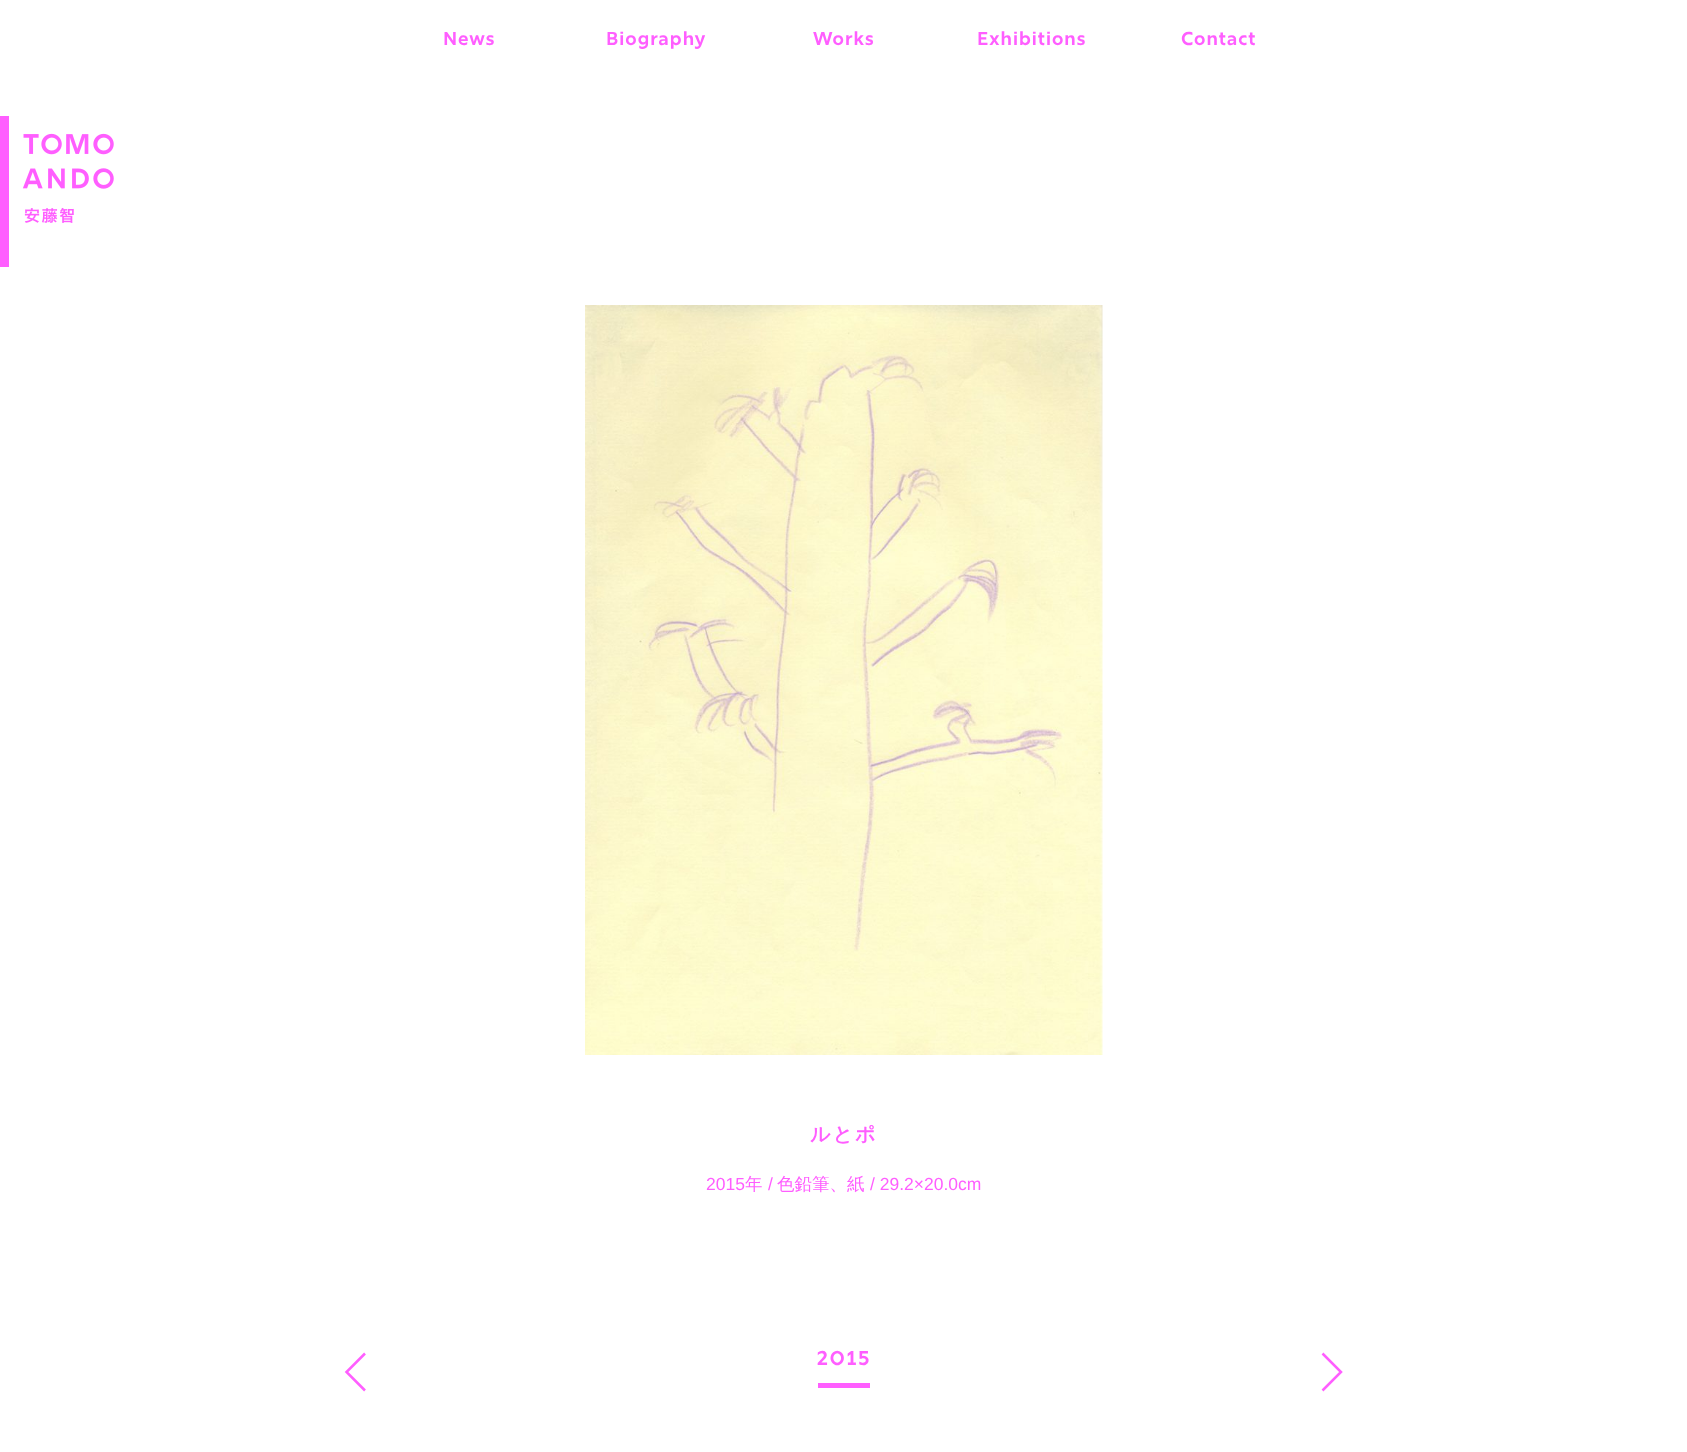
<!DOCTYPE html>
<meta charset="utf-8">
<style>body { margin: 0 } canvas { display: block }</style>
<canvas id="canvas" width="1687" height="1452"></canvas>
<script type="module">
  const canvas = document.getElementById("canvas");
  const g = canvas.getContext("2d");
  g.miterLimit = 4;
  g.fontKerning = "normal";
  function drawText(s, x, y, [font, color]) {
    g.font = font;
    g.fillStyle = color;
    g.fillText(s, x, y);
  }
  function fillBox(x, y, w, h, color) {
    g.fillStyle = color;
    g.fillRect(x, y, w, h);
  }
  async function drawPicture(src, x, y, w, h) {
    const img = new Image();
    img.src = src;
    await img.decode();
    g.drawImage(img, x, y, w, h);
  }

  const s1 = ["bold 18.75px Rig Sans", "#FF5EFF"];
  const s2 = ["bold 20px WenQuanYi Zen Hei", "#FF5EFF"];
  const s3 = ["17.5px Liberation Sans", "#FF5EFF"];
  const s4 = ["500 17.5px WenQuanYi Zen Hei", "#FF5EFF"];
  const s5 = ["bold 20px Rig Sans", "#FF5EFF"];

  fillBox(0, 0, 1687, 1452, "#FFFFFF");
  g.letterSpacing = "1px";
  drawText("News", 443, 45, s1);
  drawText("Biography", 606, 45, s1);
  drawText("Works", 813, 45, s1);
  drawText("Exhibitions", 977, 45, s1);
  drawText("Contact", 1181, 45, s1);
  await drawPicture("pic1.png", 0, 116, 114, 151);
  await drawPicture("pic2.png", 585, 305, 518, 750);
  g.letterSpacing = "2px";
  drawText("ルとポ", 810, 1141, s2);
  g.letterSpacing = "0px";
  drawText("2015", 706, 1190, s3);
  drawText("年", 745, 1190, s4);
  drawText("/", 768, 1190, s3);
  drawText("色鉛筆、紙", 777, 1190, s4);
  drawText("/ 29.2×20.0cm", 870, 1190, s3);
  g.beginPath();
  g.moveTo(365, 1390.5);
  g.lineTo(346.5, 1372);
  g.lineTo(365, 1353.5);
  g.strokeStyle = "#FF5EFF";
  g.lineWidth = 2.5;
  g.stroke();
  g.letterSpacing = "2px";
  drawText("2015", 817, 1365, s5);
  fillBox(818, 1383, 52, 5, "#FF5EFF");
  g.beginPath();
  g.moveTo(1322.5, 1353.5);
  g.lineTo(1341, 1372);
  g.lineTo(1322.5, 1390.5);
  g.stroke();
</script>
